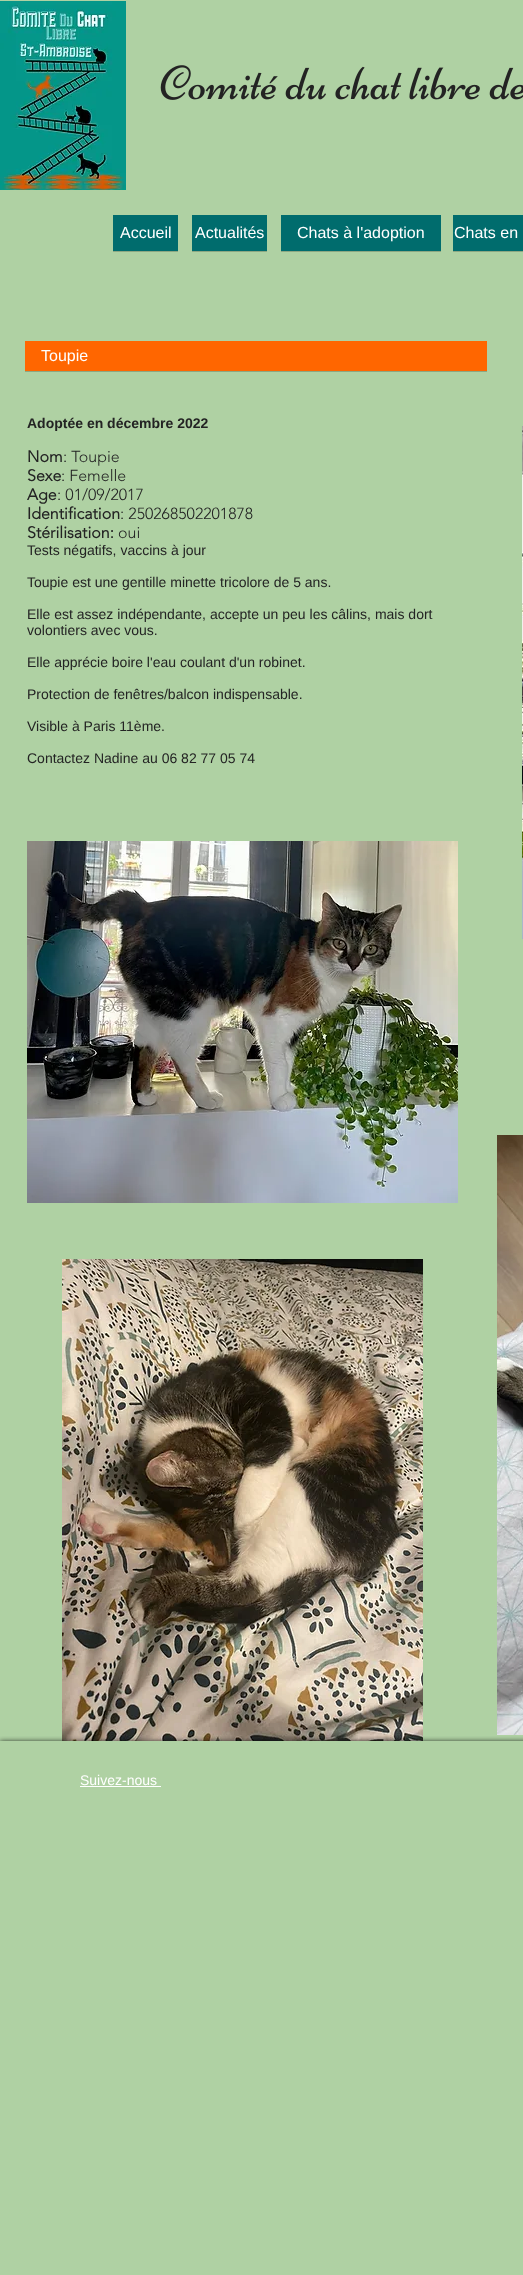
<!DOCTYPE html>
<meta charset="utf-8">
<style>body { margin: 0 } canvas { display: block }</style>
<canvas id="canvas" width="523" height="2275"></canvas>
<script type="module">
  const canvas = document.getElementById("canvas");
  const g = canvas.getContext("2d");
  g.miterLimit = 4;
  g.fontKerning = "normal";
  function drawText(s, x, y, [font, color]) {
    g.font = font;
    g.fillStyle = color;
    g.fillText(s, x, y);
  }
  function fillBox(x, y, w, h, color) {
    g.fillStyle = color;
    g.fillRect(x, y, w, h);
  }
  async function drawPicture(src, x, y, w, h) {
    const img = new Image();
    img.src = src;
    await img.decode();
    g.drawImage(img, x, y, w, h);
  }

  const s1 = ["16px Liberation Sans", "#FFFFFF"];
  const s2 = ["bold 14px Liberation Sans", "#232323"];
  const s3 = ["bold 16px 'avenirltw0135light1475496'", "#232323"];
  const s4 = ["300 16px 'avenirltw0135light1475496'", "#232323"];
  const s5 = ["14px Liberation Sans", "#232323"];
  const s6 = ["14px Liberation Sans", "#FFFFFF"];

  fillBox(0, 0, 523, 2275, "#AFD1A3");
  await drawPicture("pic1.png", 0, 1, 126, 189);
  await drawPicture("pic2.png", 160, 65, 363, 35);
  g.fillStyle = "rgba(0, 0, 0, 0.2)";
  g.filter = "blur(0.5px)";
  g.beginPath();
  g.rect(113, 216, 65, 36);
  g.fill();
  g.filter = "none";
  fillBox(113, 215, 65, 36, "#006C6D");
  drawText("Accueil", 120, 238, s1);
  g.fillStyle = "rgba(0, 0, 0, 0.2)";
  g.filter = "blur(0.5px)";
  g.beginPath();
  g.rect(192, 216, 75, 36);
  g.fill();
  g.filter = "none";
  fillBox(192, 215, 75, 36, "#006C6D");
  drawText("Actualités", 195, 238, s1);
  g.fillStyle = "rgba(0, 0, 0, 0.2)";
  g.filter = "blur(0.5px)";
  g.beginPath();
  g.rect(281, 216, 160, 36);
  g.fill();
  g.filter = "none";
  fillBox(281, 215, 160, 36, "#006C6D");
  drawText("Chats à l'adoption", 297, 238, s1);
  g.fillStyle = "rgba(0, 0, 0, 0.2)";
  g.filter = "blur(0.5px)";
  g.beginPath();
  g.rect(453, 216, 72, 36);
  g.fill();
  g.filter = "none";
  fillBox(453, 215, 70, 36, "#006C6D");
  drawText("Chats en", 454, 238, s1);
  g.fillStyle = "rgba(0, 0, 0, 0.2)";
  g.filter = "blur(0.5px)";
  g.beginPath();
  g.rect(25, 342, 462, 30);
  g.fill();
  g.filter = "none";
  fillBox(25, 341, 462, 30, "#FF6600");
  drawText("Toupie", 41, 361, s1);
  drawText("Adoptée en décembre 2022", 27, 428, s2);
  drawText("Nom", 27, 462, s3);
  drawText(": Toupie", 63, 462, s4);
  drawText("Sexe", 27, 481, s3);
  drawText(": Femelle", 61, 481, s4);
  drawText("Age", 27, 500, s3);
  drawText(": 01/09/2017", 57, 500, s4);
  drawText("Identification", 27, 519, s3);
  drawText(": 250268502201878", 120, 519, s4);
  drawText("Stérilisation:", 27, 538, s3);
  drawText("oui", 118, 538, s4);
  drawText("Tests négatifs, vaccins à jour", 27, 555, s5);
  drawText("Toupie est une gentille minette tricolore de 5 ans.", 27, 587, s5);
  drawText("Elle est assez indépendante, accepte un peu les câlins, mais dort", 27, 619, s5);
  drawText("volontiers avec vous.", 27, 635, s5);
  drawText("Elle apprécie boire l'eau coulant d'un robinet.", 27, 667, s5);
  drawText("Protection de fenêtres/balcon indispensable.", 27, 699, s5);
  drawText("Visible à Paris 11ème.", 27, 731, s5);
  drawText("Contactez Nadine au 06 82 77 05 74", 27, 763, s5);
  await drawPicture("pic3.png", 522, 426, 1, 513);
  await drawPicture("pic4.png", 27, 841, 431, 362);
  await drawPicture("pic5.png", 62, 1259, 361, 482);
  await drawPicture("pic6.png", 497, 1135, 26, 600);
  g.save();
  g.beginPath();
  g.rect(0, 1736, 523, 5);
  g.clip();
  g.fillStyle = "rgba(0, 0, 0, 0.7)";
  g.filter = "blur(2.5px)";
  g.beginPath();
  g.rect(0, 1741, 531, 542);
  g.fill();
  g.filter = "none";
  g.restore();
  drawText("Suivez-nous", 80, 1785, s6);
  fillBox(80, 1786, 81, 1, "#FFFFFF");
</script>
